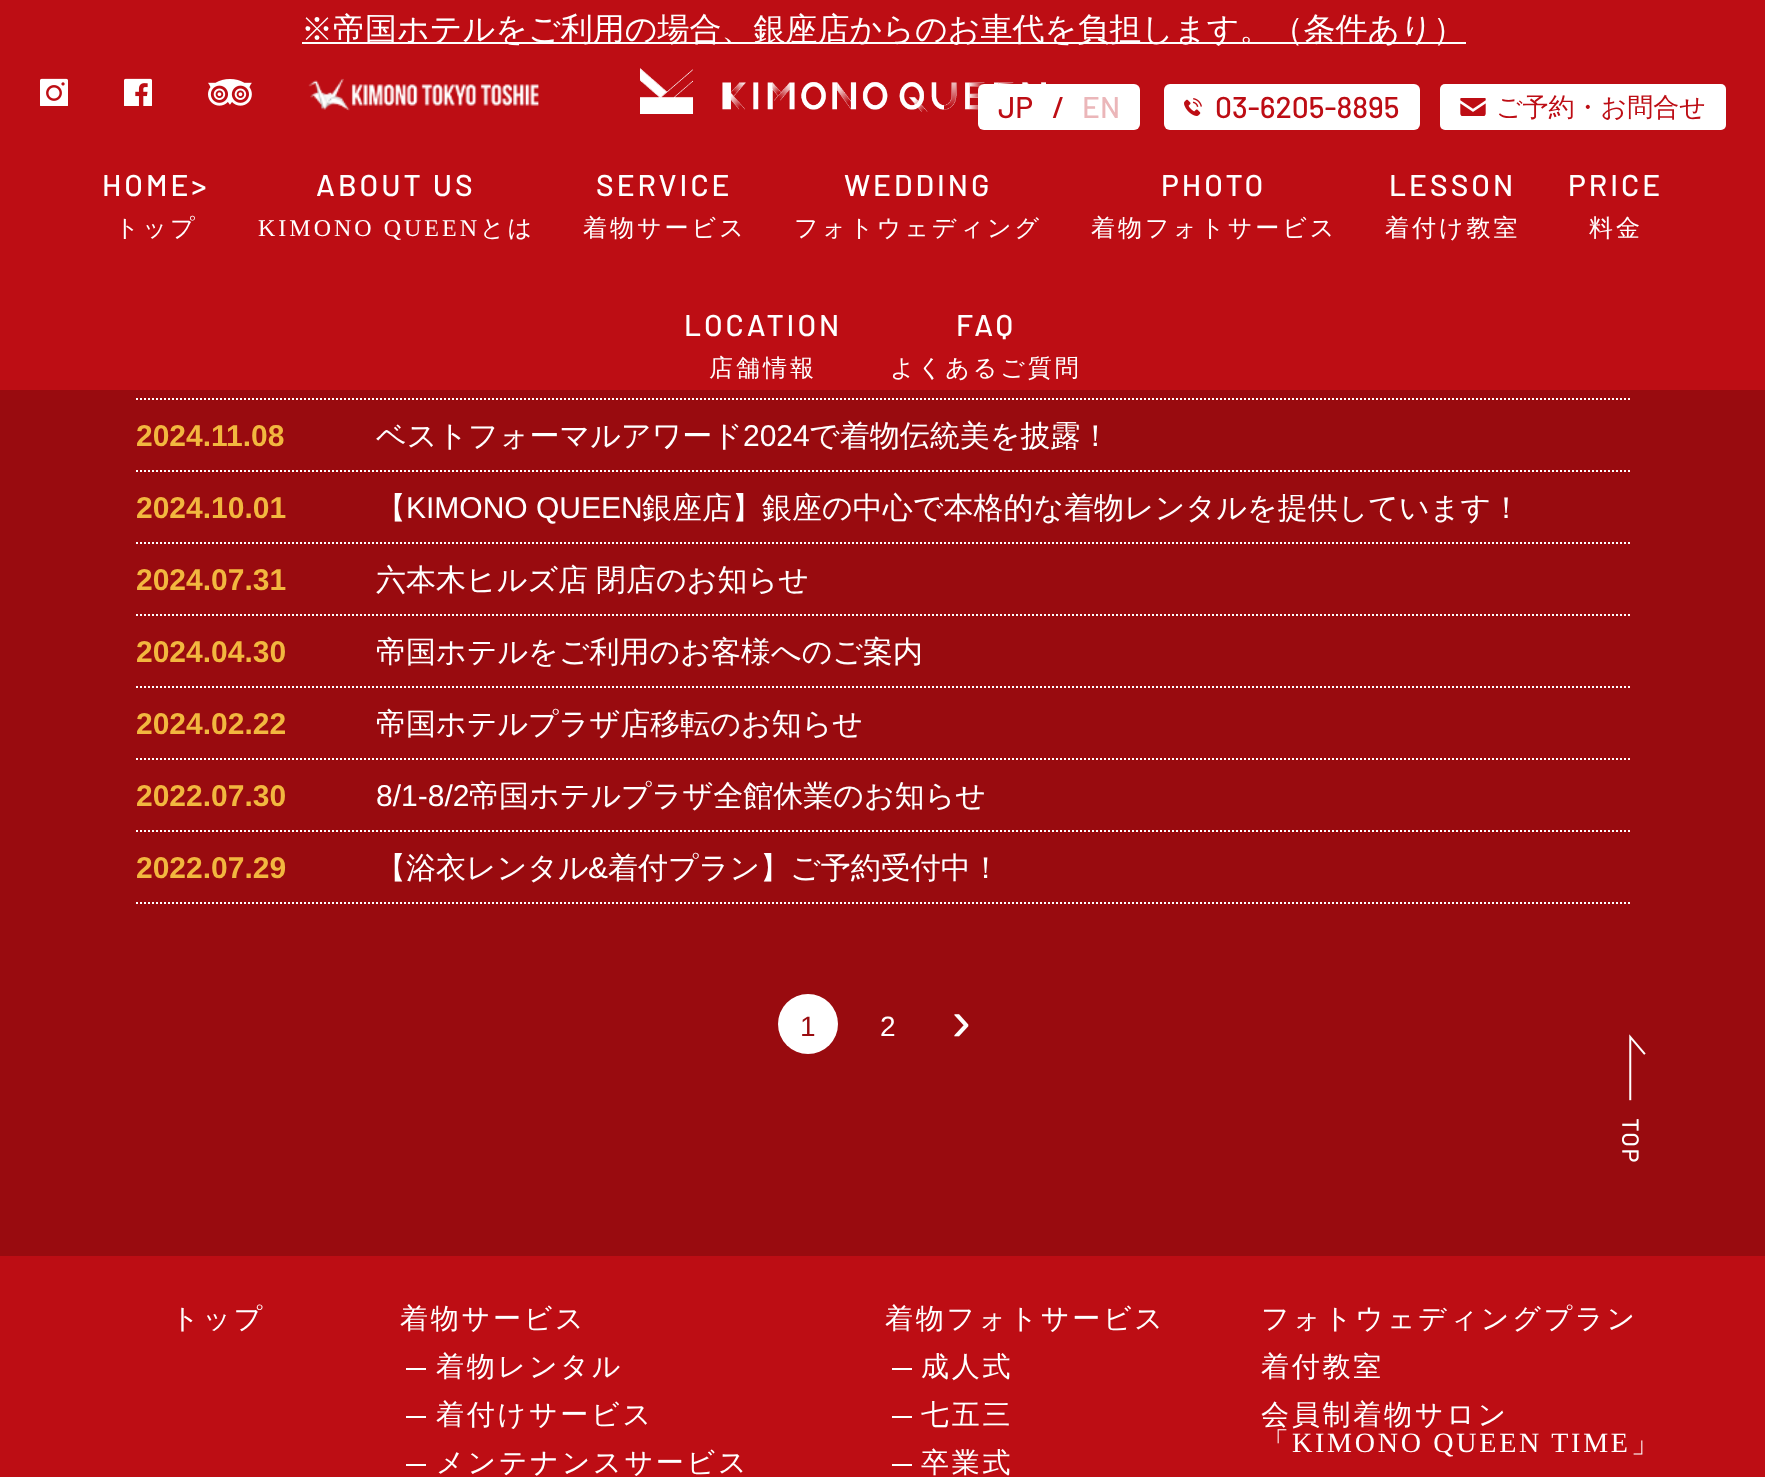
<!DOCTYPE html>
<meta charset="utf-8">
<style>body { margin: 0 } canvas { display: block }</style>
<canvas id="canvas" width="1765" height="1477"></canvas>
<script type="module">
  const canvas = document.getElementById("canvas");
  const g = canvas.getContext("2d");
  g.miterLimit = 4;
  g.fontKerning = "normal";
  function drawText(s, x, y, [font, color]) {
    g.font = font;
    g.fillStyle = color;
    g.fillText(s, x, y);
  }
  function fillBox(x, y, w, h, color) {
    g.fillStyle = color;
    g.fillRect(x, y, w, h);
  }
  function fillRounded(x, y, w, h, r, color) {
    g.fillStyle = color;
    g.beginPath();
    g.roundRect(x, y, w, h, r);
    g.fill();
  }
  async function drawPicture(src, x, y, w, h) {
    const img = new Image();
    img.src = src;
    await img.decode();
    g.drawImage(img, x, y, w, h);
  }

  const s1 = ["500 32px WenQuanYi Zen Hei", "#FFFFFF"];
  const s2 = ["500 30px Barlow", "#FFFFFF"];
  const s3 = ["500 24px WenQuanYi Zen Hei", "#FFFFFF"];
  const s4 = ["24px Liberation Serif", "#FFFFFF"];
  const s5 = ["500 30px Barlow", "#BD0D14"];
  const s6 = ["500 30px Barlow", "#EBB6B9"];
  const s7 = ["500 26px WenQuanYi Zen Hei", "#BD0D14"];
  const s8 = ["bold 30px Liberation Sans", "#F2B73F"];
  const s9 = ["500 30px WenQuanYi Zen Hei", "#FFFFFF"];
  const s10 = ["30px Liberation Sans", "#FFFFFF"];
  const s11 = ["28px Liberation Sans", "#990B0F"];
  const s12 = ["28px Liberation Sans", "#FFFFFF"];
  const s13 = ["56px Liberation Sans", "#FFFFFF"];
  const s14 = ["500 28px WenQuanYi Zen Hei", "#FFFFFF"];
  const s15 = ["28px Liberation Serif", "#FFFFFF"];

  fillBox(0, 0, 1765, 1477, "#990B0F");
  fillBox(0, 0, 1765, 390, "#BD0D14");
  fillBox(302, 42, 1164, 2, "#FFFFFF");
  drawText("※帝国ホテルをご利用の場合、銀座店からのお車代を負担します。（条件あり）", 301, 40, s1);
  await drawPicture("pic1.png", 40, 78, 28, 28);
  await drawPicture("pic2.png", 124, 78, 28, 28);
  await drawPicture("pic3.png", 208, 79, 44, 27);
  await drawPicture("pic4.png", 308, 78, 231, 33);
  await drawPicture("pic5.png", 640, 68, 406, 46);
  g.letterSpacing = "3px";
  drawText("HOME>", 102, 196, s2);
  drawText("トップ", 115, 236, s3);
  drawText("ABOUT US", 316, 196, s2);
  drawText("KIMONO QUEEN", 258, 236, s4);
  drawText("とは", 480, 236, s3);
  drawText("SERVICE", 596, 196, s2);
  drawText("着物サービス", 583, 236, s3);
  drawText("WEDDING", 844, 196, s2);
  drawText("フォトウェディング", 794, 236, s3);
  drawText("PHOTO", 1161, 196, s2);
  drawText("着物フォトサービス", 1091, 236, s3);
  drawText("LESSON", 1389, 196, s2);
  drawText("着付け教室", 1385, 236, s3);
  drawText("PRICE", 1568, 196, s2);
  drawText("料金", 1589, 236, s3);
  drawText("LOCATION", 684, 336, s2);
  drawText("店舗情報", 709, 376, s3);
  drawText("FAQ", 956, 336, s2);
  drawText("よくあるご質問", 890, 376, s3);
  fillRounded(978, 84, 162, 46, 6, "#FFFFFF");
  g.letterSpacing = "0px";
  drawText("JP", 998, 118, s5);
  drawText("/", 1052, 118, s5);
  drawText("EN", 1082, 118, s6);
  fillRounded(1164, 84, 256, 46, 6, "#FFFFFF");
  await drawPicture("pic6.png", 1184, 98, 18, 18);
  drawText("03-6205-8895", 1215, 118, s5);
  fillRounded(1440, 84, 286, 46, 5, "#FFFFFF");
  await drawPicture("pic7.png", 1460, 98, 26, 18);
  drawText("ご予約・お問合せ", 1496, 116, s7);
  g.beginPath();
  g.moveTo(136, 399);
  g.lineTo(1630, 399);
  g.strokeStyle = "#FFFFFF";
  g.lineWidth = 2;
  g.setLineDash([2, 2]);
  g.stroke();
  g.beginPath();
  g.moveTo(136, 471);
  g.lineTo(1630, 471);
  g.stroke();
  drawText("2024.11.08", 136, 446, s8);
  drawText("ベストフォーマルアワード", 376, 446, s9);
  drawText("2024", 743, 446, s10);
  drawText("で着物伝統美を披露！", 809, 446, s9);
  g.beginPath();
  g.moveTo(136, 543);
  g.lineTo(1630, 543);
  g.stroke();
  drawText("2024.10.01", 136, 518, s8);
  drawText("【", 376, 518, s9);
  drawText("KIMONO QUEEN", 406, 518, s10);
  drawText("銀座店】銀座の中心で本格的な着物レンタルを提供しています！", 642, 518, s9);
  g.beginPath();
  g.moveTo(136, 615);
  g.lineTo(1630, 615);
  g.stroke();
  drawText("2024.07.31", 136, 590, s8);
  g.wordSpacing = "-1px";
  drawText("六本木ヒルズ店 閉店のお知らせ", 376, 590, s9);
  g.beginPath();
  g.moveTo(136, 687);
  g.lineTo(1630, 687);
  g.stroke();
  g.wordSpacing = "0px";
  drawText("2024.04.30", 136, 662, s8);
  drawText("帝国ホテルをご利用のお客様へのご案内", 376, 662, s9);
  g.beginPath();
  g.moveTo(136, 759);
  g.lineTo(1630, 759);
  g.stroke();
  drawText("2024.02.22", 136, 734, s8);
  drawText("帝国ホテルプラザ店移転のお知らせ", 376, 734, s9);
  g.beginPath();
  g.moveTo(136, 831);
  g.lineTo(1630, 831);
  g.stroke();
  drawText("2022.07.30", 136, 806, s8);
  drawText("8/1-8/2", 376, 806, s10);
  drawText("帝国ホテルプラザ全館休業のお知らせ", 469, 806, s9);
  g.beginPath();
  g.moveTo(136, 903);
  g.lineTo(1630, 903);
  g.stroke();
  drawText("2022.07.29", 136, 878, s8);
  drawText("【浴衣レンタル", 376, 878, s9);
  drawText("&", 588, 878, s10);
  drawText("着付プラン】ご予約受付中！", 608, 878, s9);
  g.beginPath();
  g.arc(808, 1024, 30, 0, Math.PI * 2);
  g.fill();
  drawText("1", 800, 1036, s11);
  drawText("2", 880, 1036, s12);
  drawText("›", 952, 1040, s13);
  await drawPicture("pic8.png", 1622, 1034, 24, 128);
  fillBox(0, 1256, 1765, 221, "#BD0D14");
  g.letterSpacing = "2.75px";
  drawText("トップ", 171, 1328, s14);
  drawText("着物サービス", 400, 1328, s14);
  fillBox(406, 1368, 20, 2, "#FFFFFF");
  drawText("着物レンタル", 436, 1376, s14);
  fillBox(406, 1416, 20, 2, "#FFFFFF");
  drawText("着付けサービス", 436, 1424, s14);
  fillBox(406, 1464, 20, 2, "#FFFFFF");
  drawText("メンテナンスサービス", 436, 1472, s14);
  drawText("着物フォトサービス", 885, 1328, s14);
  fillBox(892, 1368, 20, 2, "#FFFFFF");
  drawText("成人式", 921, 1376, s14);
  fillBox(892, 1416, 20, 2, "#FFFFFF");
  drawText("七五三", 921, 1424, s14);
  fillBox(892, 1464, 20, 2, "#FFFFFF");
  drawText("卒業式", 921, 1472, s14);
  drawText("フォトウェディングプラン", 1261, 1328, s14);
  drawText("着付教室", 1261, 1376, s14);
  drawText("会員制着物サロン", 1261, 1424, s14);
  drawText("「", 1261, 1452, s14);
  drawText("KIMONO QUEEN TIME", 1292, 1452, s15);
  drawText("」", 1631, 1452, s14);
</script>
